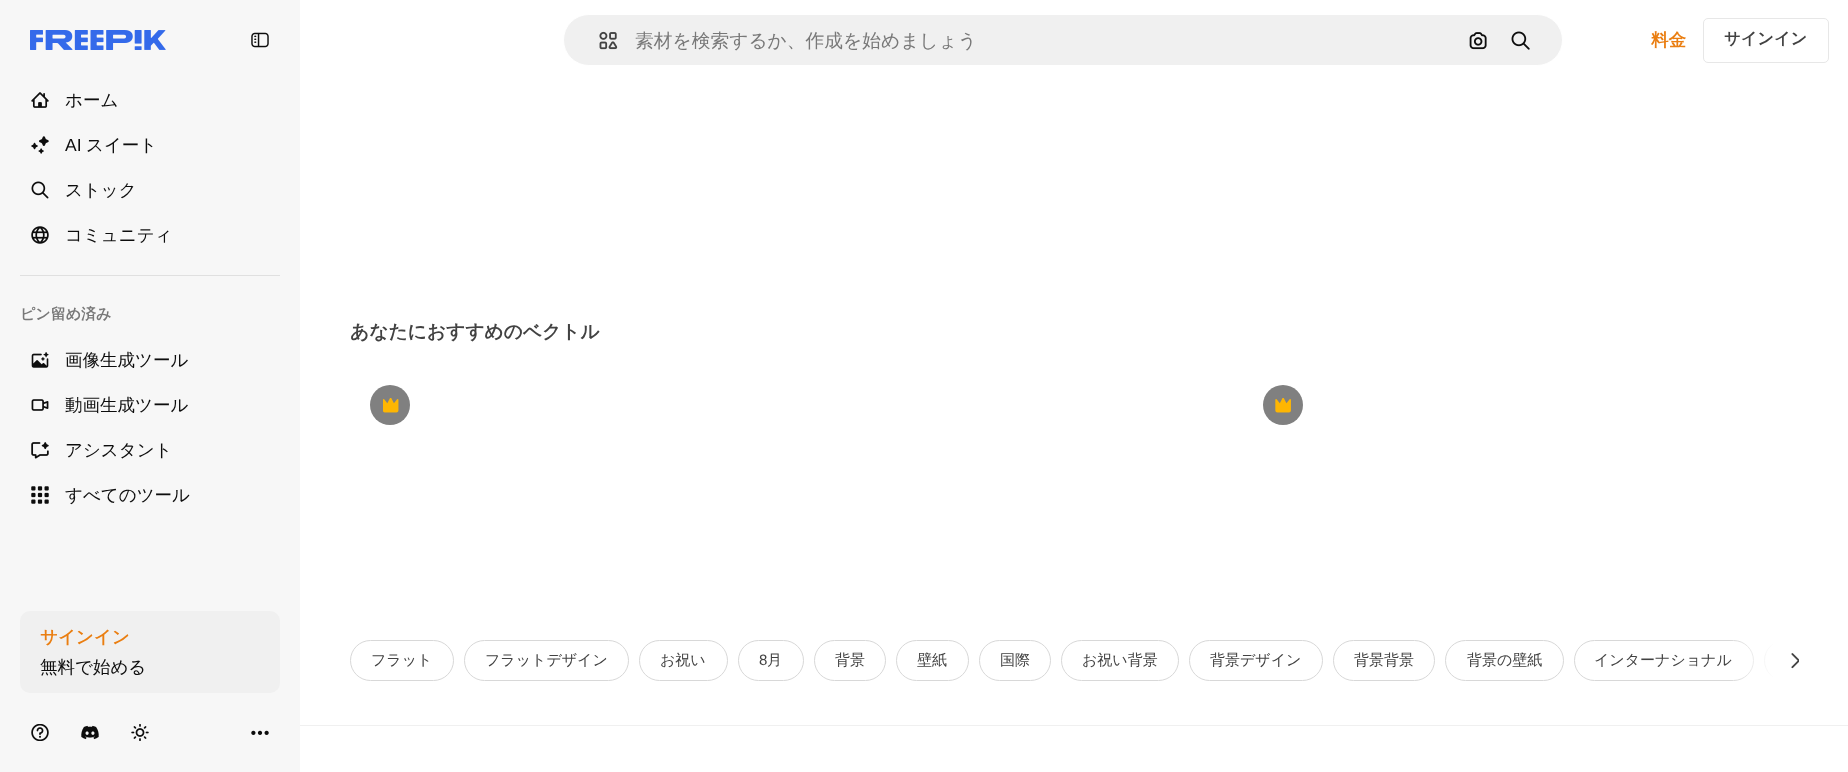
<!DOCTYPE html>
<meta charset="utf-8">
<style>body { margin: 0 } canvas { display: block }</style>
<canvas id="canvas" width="1848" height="772"></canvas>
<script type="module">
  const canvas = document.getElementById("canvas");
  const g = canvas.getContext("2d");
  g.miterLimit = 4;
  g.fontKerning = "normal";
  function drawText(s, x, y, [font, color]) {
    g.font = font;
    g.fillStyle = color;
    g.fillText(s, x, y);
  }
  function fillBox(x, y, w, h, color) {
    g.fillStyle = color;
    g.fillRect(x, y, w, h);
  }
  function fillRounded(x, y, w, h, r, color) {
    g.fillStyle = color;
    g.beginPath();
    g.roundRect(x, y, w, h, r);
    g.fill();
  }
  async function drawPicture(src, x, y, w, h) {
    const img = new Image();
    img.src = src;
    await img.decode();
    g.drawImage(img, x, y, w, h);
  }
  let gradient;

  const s1 = ["500 17.5px WenQuanYi Zen Hei", "#0D0D0D"];
  const s2 = ["17.5px Liberation Sans", "#0D0D0D"];
  const s3 = ["bold 15px WenQuanYi Zen Hei", "#787878"];
  const s4 = ["bold 17.5px WenQuanYi Zen Hei", "#EA7E11"];
  const s5 = ["500 18.75px WenQuanYi Zen Hei", "#787878"];
  const s6 = ["bold 16.25px WenQuanYi Zen Hei", "#424242"];
  const s7 = ["bold 18.75px WenQuanYi Zen Hei", "#424242"];
  const s8 = ["500 15px WenQuanYi Zen Hei", "#424242"];
  const s9 = ["15px Liberation Sans", "#424242"];

  fillBox(0, 0, 1848, 772, "#FFFFFF");
  fillBox(0, 0, 300, 772, "#F7F7F7");
  await drawPicture("pic1.png", 30, 30, 136, 20);
  await drawPicture("pic2.png", 251, 32, 18, 16);
  await drawPicture("pic3.png", 31, 92, 18, 16);
  drawText("ホーム", 65, 106, s1);
  await drawPicture("pic4.png", 31, 136, 18, 18);
  drawText("AI", 65, 151, s2);
  drawText("スイート", 86, 151, s1);
  await drawPicture("pic5.png", 31, 181, 18, 18);
  drawText("ストック", 65, 196, s1);
  await drawPicture("pic6.png", 31, 226, 18, 18);
  drawText("コミュニティ", 65, 241, s1);
  fillBox(20, 275, 260, 1, "#E0E0E0");
  drawText("ピン留め済み", 20, 319, s3);
  await drawPicture("pic7.png", 31, 352, 18, 16);
  drawText("画像生成ツール", 65, 366, s1);
  await drawPicture("pic8.png", 31, 399, 18, 12);
  drawText("動画生成ツール", 65, 411, s1);
  await drawPicture("pic9.png", 31, 442, 18, 17);
  drawText("アシスタント", 65, 456, s1);
  await drawPicture("pic10.png", 31, 486, 18, 18);
  drawText("すべてのツール", 65, 501, s1);
  fillRounded(20, 611, 260, 82, 10, "#F0F0F0");
  drawText("サインイン", 40, 643, s4);
  drawText("無料で始める", 40, 673, s1);
  await drawPicture("pic11.png", 31, 724, 18, 17);
  await drawPicture("pic12.png", 81, 725, 18, 15);
  await drawPicture("pic13.png", 131, 724, 18, 17);
  await drawPicture("pic14.png", 251, 730, 18, 5);
  g.fillStyle = "#F0F0F0";
  g.beginPath();
  g.roundRect(563.5, 14.5, 999, 51, 25.5);
  g.fill();
  g.strokeStyle = "#FFFFFF";
  g.stroke();
  await drawPicture("pic15.png", 599, 31, 19, 19);
  drawText("素材を検索するか、作成を始めましょう", 635, 47, s5);
  await drawPicture("pic16.png", 1469, 32, 18, 18);
  await drawPicture("pic17.png", 1511, 31, 19, 19);
  drawText("料金", 1651, 46, s4);
  g.beginPath();
  g.roundRect(1703.5, 18.5, 125, 44, 4.5);
  g.strokeStyle = "#E7E7E7";
  g.stroke();
  drawText("サインイン", 1724, 44, s6);
  drawText("あなたにおすすめのベクトル", 350, 338, s7);
  g.fillStyle = "#808080";
  g.beginPath();
  g.arc(390, 405, 20, 0, Math.PI * 2);
  g.fill();
  await drawPicture("pic18.png", 383, 398, 16, 15);
  g.beginPath();
  g.arc(1283, 405, 20, 0, Math.PI * 2);
  g.fill();
  await drawPicture("pic19.png", 1275, 398, 16, 15);
  g.beginPath();
  g.roundRect(350.5, 640.5, 103, 40, 20);
  g.strokeStyle = "#D8D8D8";
  g.stroke();
  drawText("フラット", 371, 665, s8);
  g.beginPath();
  g.roundRect(464.5, 640.5, 164, 40, 20);
  g.stroke();
  drawText("フラットデザイン", 485, 665, s8);
  g.beginPath();
  g.roundRect(639.5, 640.5, 88, 40, 20);
  g.stroke();
  drawText("お祝い", 660, 665, s8);
  g.beginPath();
  g.roundRect(738.5, 640.5, 65, 40, 20);
  g.stroke();
  drawText("8", 759, 665, s9);
  drawText("月", 767, 665, s8);
  g.beginPath();
  g.roundRect(814.5, 640.5, 71, 40, 20);
  g.stroke();
  drawText("背景", 835, 665, s8);
  g.beginPath();
  g.roundRect(896.5, 640.5, 72, 40, 20);
  g.stroke();
  drawText("壁紙", 917, 665, s8);
  g.beginPath();
  g.roundRect(979.5, 640.5, 71, 40, 20);
  g.stroke();
  drawText("国際", 1000, 665, s8);
  g.beginPath();
  g.roundRect(1061.5, 640.5, 117, 40, 20);
  g.stroke();
  drawText("お祝い背景", 1082, 665, s8);
  g.beginPath();
  g.roundRect(1189.5, 640.5, 133, 40, 20);
  g.stroke();
  drawText("背景デザイン", 1210, 665, s8);
  g.beginPath();
  g.roundRect(1333.5, 640.5, 101, 40, 20);
  g.stroke();
  drawText("背景背景", 1354, 665, s8);
  g.beginPath();
  g.roundRect(1445.5, 640.5, 118, 40, 20);
  g.stroke();
  drawText("背景の壁紙", 1467, 665, s8);
  g.beginPath();
  g.roundRect(1574.5, 640.5, 179, 40, 20);
  g.stroke();
  drawText("インターナショナル", 1594, 665, s8);
  g.save();
  g.beginPath();
  g.rect(350, 640, 1449, 41);
  g.clip();
  g.beginPath();
  g.roundRect(1764.5, 640.5, 73, 40, 20);
  g.stroke();
  g.restore();
  fillBox(1774, 640, 25, 41, "#FFFFFF");
  gradient = g.createLinearGradient(1774, 661, 1730, 661);
  gradient.addColorStop(0, "#FFFFFF");
  gradient.addColorStop(1, "rgba(255, 255, 255, 0)");
  g.fillStyle = gradient;
  g.fillRect(1731, 640, 43, 41);
  await drawPicture("pic20.png", 1791, 653, 8, 16);
  fillBox(300, 725, 1548, 1, "#F0F0F0");
</script>
